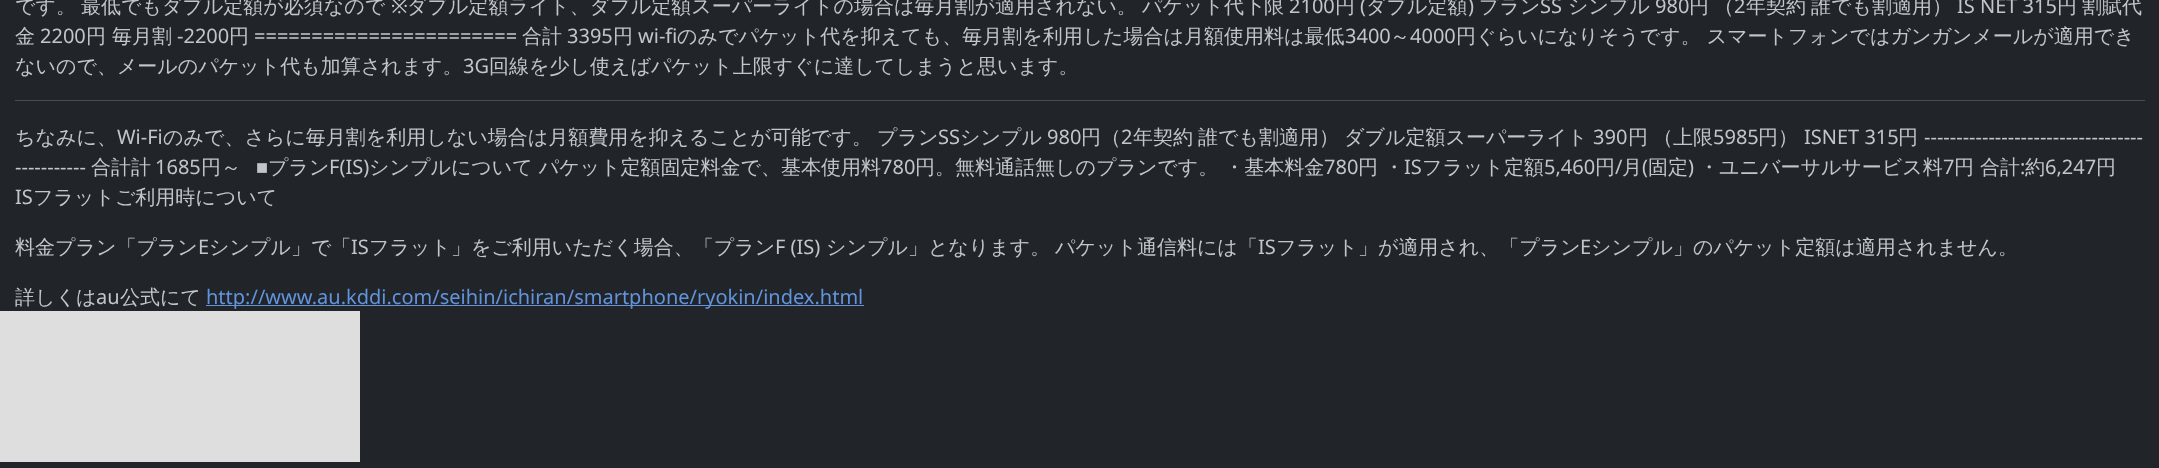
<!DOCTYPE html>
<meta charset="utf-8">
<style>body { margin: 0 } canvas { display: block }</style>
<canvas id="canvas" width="2159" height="468"></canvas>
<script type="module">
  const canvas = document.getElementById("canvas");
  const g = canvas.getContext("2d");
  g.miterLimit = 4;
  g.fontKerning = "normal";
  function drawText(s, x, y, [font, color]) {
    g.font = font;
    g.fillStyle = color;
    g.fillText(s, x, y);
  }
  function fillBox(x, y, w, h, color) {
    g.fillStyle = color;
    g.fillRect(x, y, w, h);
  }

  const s1 = ["500 20px WenQuanYi Zen Hei", "#C2C6CA"];
  const s2 = ["20px Noto Sans", "#C2C6CA"];
  const s3 = ["20px Liberation Sans", "#C2C6CA"];
  const s4 = ["20px Noto Sans", "#6294DE"];

  fillBox(0, 0, 2159, 468, "#212529");
  drawText("です。", 15, 13, s1);
  drawText("最低でもダブル定額が必須なので", 81, 13, s1);
  drawText("※", 391, 13, s2);
  drawText("ダブル定額ライト、ダブル定額スーパーライトの場合は毎月割が適用されない。", 407, 13, s1);
  drawText("パケット代下限", 1142, 13, s1);
  drawText("2100", 1289, 13, s2);
  drawText("円", 1335, 13, s1);
  drawText("(", 1360, 13, s2);
  drawText("ダブル定額", 1366, 13, s1);
  drawText(")", 1468, 13, s2);
  drawText("プラン", 1479, 13, s1);
  drawText("SS", 1540, 13, s2);
  drawText("シンプル", 1568, 13, s1);
  drawText("980", 1655, 13, s2);
  drawText("円", 1689, 13, s1);
  drawText("（", 1714, 13, s1);
  drawText("2", 1734, 13, s2);
  drawText("年契約", 1746, 13, s1);
  drawText("誰でも割適用）", 1811, 13, s1);
  drawText("IS NET 315", 1957, 13, s2);
  drawText("円", 2057, 13, s1);
  drawText("割賦代", 2082, 13, s1);
  drawText("金", 15, 43, s1);
  drawText("2200", 40, 43, s2);
  drawText("円 毎月割", 86, 43, s1);
  drawText("-2200", 177, 43, s2);
  drawText("円", 229, 43, s1);
  drawText("=======================", 254, 43, s2);
  drawText("合計", 522, 43, s1);
  drawText("3395", 567, 43, s2);
  drawText("円", 613, 43, s1);
  drawText("wi-fi", 638, 43, s2);
  drawText("のみでパケット代を抑えても、毎月割を利用した場合は月額使用料は最低", 677, 43, s1);
  drawText("3400", 1345, 43, s2);
  drawText("～", 1390, 43, s1);
  drawText("4000", 1410, 43, s2);
  drawText("円ぐらいになりそうです。 スマートフォンではガンガンメールが適用でき", 1456, 43, s1);
  drawText("ないので、メールのパケット代も加算されます。", 15, 73, s1);
  drawText("3G", 463, 73, s2);
  drawText("回線を少し使えばパケット上限すぐに達してしまうと思います。", 489, 73, s1);
  fillBox(15, 100, 2130, 1, "#494D51");
  drawText("ちなみに、", 15, 144, s1);
  drawText("Wi-Fi", 117, 144, s2);
  drawText("のみで、さらに毎月割を利用しない場合は月額費用を抑えることが可能です。", 163, 144, s1);
  drawText("プラン", 877, 144, s1);
  drawText("SS", 938, 144, s2);
  drawText("シンプル", 960, 144, s1);
  drawText("980", 1047, 144, s2);
  drawText("円（", 1081, 144, s1);
  drawText("2", 1121, 144, s2);
  drawText("年契約", 1133, 144, s1);
  drawText("誰でも割適用）", 1198, 144, s1);
  drawText("ダブル定額スーパーライト", 1344, 144, s1);
  drawText("390", 1593, 144, s2);
  drawText("円", 1628, 144, s1);
  drawText("（上限", 1653, 144, s1);
  drawText("5985", 1713, 144, s2);
  drawText("円）", 1758, 144, s1);
  drawText("ISNET 315", 1804, 144, s2);
  drawText("円", 1898, 144, s1);
  drawText("----------------------------------", 1924, 144, s2);
  drawText("合計計", 91, 174, s1);
  drawText("1685", 155, 174, s2);
  drawText("円～", 201, 174, s1);
  drawText("プラン", 268, 174, s1);
  drawText("F(IS)", 329, 174, s2);
  drawText("シンプルについて パケット定額固定料金で、基本使用料", 369, 174, s1);
  drawText("780", 881, 174, s2);
  drawText("円。無料通話無しのプランです。 ・基本料金", 915, 174, s1);
  drawText("780", 1324, 174, s2);
  drawText("円 ・", 1358, 174, s1);
  drawText("IS", 1404, 174, s2);
  drawText("フラット定額", 1422, 174, s1);
  drawText("5,460", 1544, 174, s2);
  drawText("円", 1595, 174, s1);
  drawText("/", 1615, 174, s2);
  drawText("月 固定", 1622, 174, s1);
  drawText("・ユニバーサルサービス料", 1699, 174, s1);
  drawText("円 合計", 1954, 174, s1);
  drawText("約", 2025, 174, s1);
  drawText("円", 2096, 174, s1);
  drawText("-----------", 15, 174, s2);
  drawText("■", 256, 174, s3);
  drawText("(", 1642, 174, s2);
  drawText(")", 1688, 174, s2);
  drawText("7", 1943, 174, s2);
  drawText(":", 2020, 174, s2);
  drawText("6,247", 2045, 174, s2);
  drawText("IS", 15, 204, s2);
  drawText("フラットご利用時について", 33, 204, s1);
  drawText("料金プラン「プラン", 15, 254, s1);
  drawText("E", 198, 254, s2);
  drawText("シンプル」で「", 209, 254, s1);
  drawText("IS", 351, 254, s2);
  drawText("フラット」をご利用いただく場合、「プラン", 369, 254, s1);
  drawText("F (IS)", 775, 254, s2);
  drawText("シンプル」となります。", 826, 254, s1);
  drawText("パケット通信料には「", 1055, 254, s1);
  drawText("IS", 1258, 254, s2);
  drawText("フラット」が適用され、「プラン", 1276, 254, s1);
  drawText("E", 1580, 254, s2);
  drawText("シンプル」のパケット定額は適用されません。", 1591, 254, s1);
  drawText("詳しくは", 15, 304, s1);
  drawText("au", 96, 304, s2);
  drawText("公式にて", 120, 304, s1);
  fillBox(206, 305, 658, 1, "#6294DE");
  drawText("http://www.au.kddi.com/seihin/ichiran/smartphone/ryokin/index.html", 206, 304, s4);
  fillBox(0, 311, 360, 151, "#DEDEDF");
</script>
